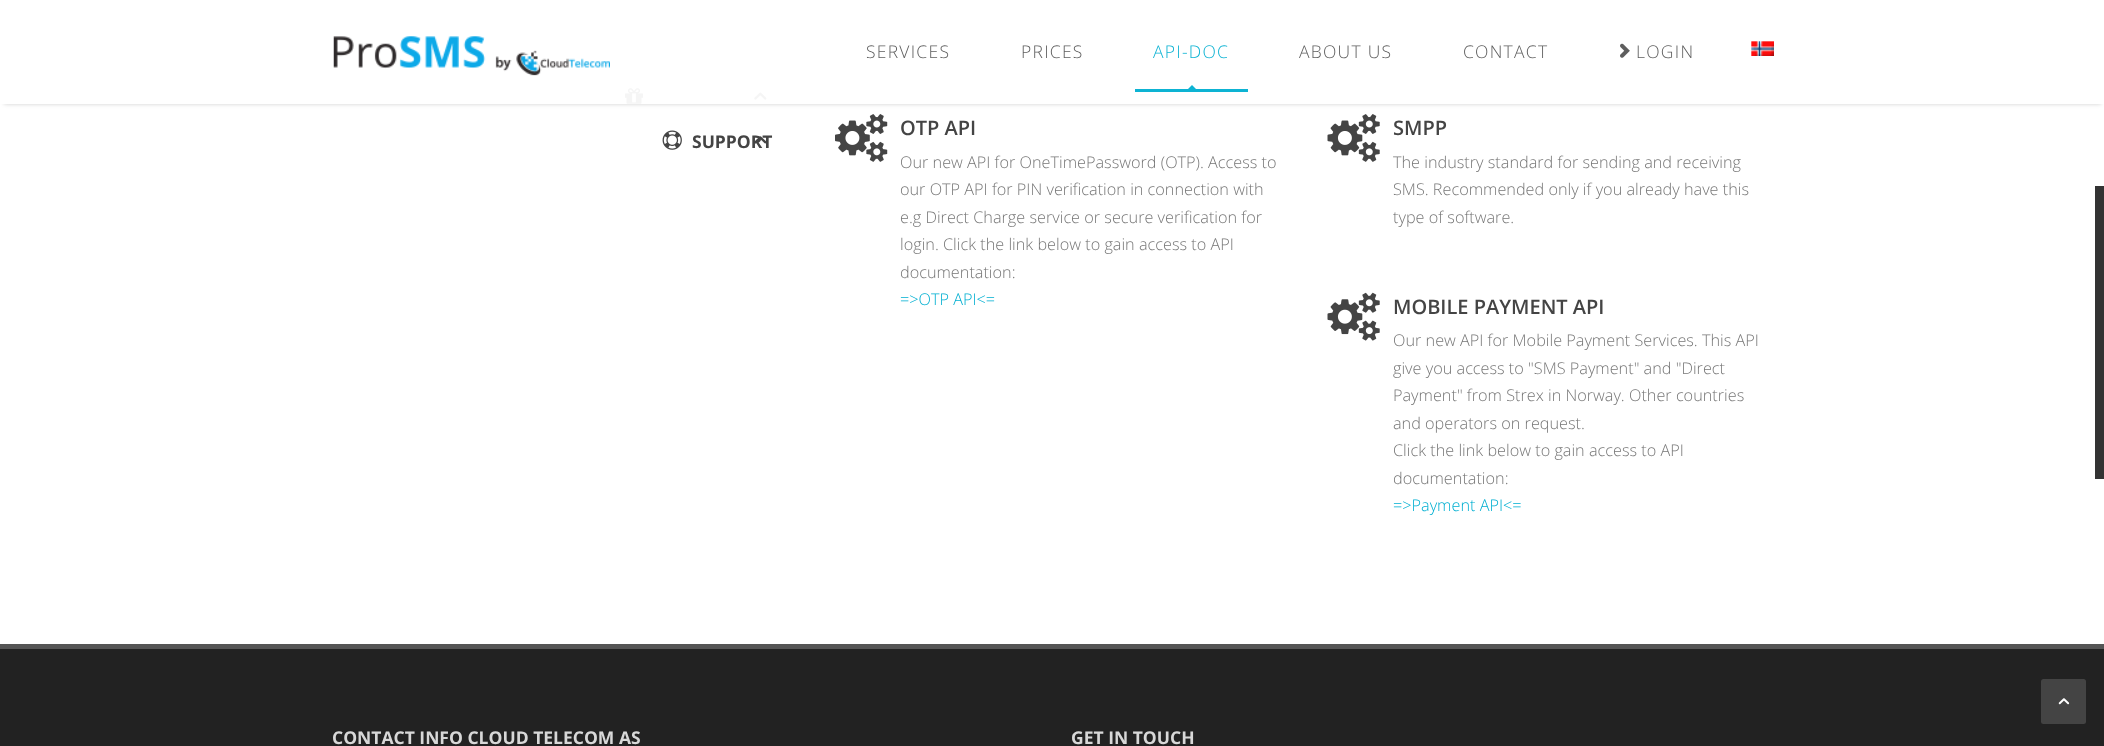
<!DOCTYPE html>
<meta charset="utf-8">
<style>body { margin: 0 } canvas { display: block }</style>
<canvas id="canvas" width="2104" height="746"></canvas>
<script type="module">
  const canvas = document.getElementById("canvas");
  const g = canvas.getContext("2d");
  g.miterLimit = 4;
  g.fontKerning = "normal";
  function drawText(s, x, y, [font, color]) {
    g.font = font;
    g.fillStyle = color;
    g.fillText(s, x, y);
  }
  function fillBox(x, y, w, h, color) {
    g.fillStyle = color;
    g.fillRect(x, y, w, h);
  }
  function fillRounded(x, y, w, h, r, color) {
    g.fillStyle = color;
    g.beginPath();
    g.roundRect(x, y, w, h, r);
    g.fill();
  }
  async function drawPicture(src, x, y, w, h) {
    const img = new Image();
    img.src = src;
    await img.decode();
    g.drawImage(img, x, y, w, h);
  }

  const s1 = ["300 17.5px Open Sans", "#5E5E5E"];
  const s2 = ["300 17.5px Open Sans", "#0DB3D3"];
  const s3 = ["bold 17.5px Open Sans", "#444444"];
  const s4 = ["600 20px Open Sans", "#444444"];
  const s5 = ["300 16.25px Open Sans", "#777777"];
  const s6 = ["300 16.25px Open Sans", "#00AFD1"];
  const s7 = ["bold 17.5px Open Sans", "#D8D8D8"];

  fillBox(0, 0, 2104, 746, "#FFFFFF");
  await drawPicture("pic4.png", 625, 88, 18, 16);
  await drawPicture("pic5.png", 754, 92, 13, 8);
  g.save();
  g.beginPath();
  g.moveTo(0, 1);
  g.lineTo(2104, 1);
  g.lineTo(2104, 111);
  g.lineTo(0, 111);
  g.closePath();
  g.moveTo(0, 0);
  g.lineTo(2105, 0);
  g.lineTo(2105, 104);
  g.lineTo(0, 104);
  g.closePath();
  g.clip("evenodd");
  g.fillStyle = "rgba(0, 0, 0, 0.19)";
  g.filter = "blur(2px)";
  g.beginPath();
  g.rect(4, 8, 2097, 96);
  g.fill();
  g.filter = "none";
  g.restore();
  fillBox(3, 88, 2099, 16, "rgba(255, 255, 255, 0.95)");
  await drawPicture("pic1.png", 333, 36, 277, 40);
  g.letterSpacing = "1.25px";
  drawText("SERVICES", 866, 58, s1);
  drawText("PRICES", 1021, 58, s1);
  fillBox(1135, 89, 113, 3, "#0DB3D3");
  drawText("API-DOC", 1153, 58, s2);
  g.save();
  g.beginPath();
  g.rect(1135, 13, 113, 76);
  g.clip();
  g.beginPath();
  g.moveTo(1192, 85);
  g.lineTo(1196.5, 89.5);
  g.lineTo(1192, 94);
  g.lineTo(1187.5, 89.5);
  g.closePath();
  g.fill();
  g.restore();
  drawText("ABOUT US", 1299, 58, s1);
  drawText("CONTACT", 1463, 58, s1);
  await drawPicture("pic2.png", 1620, 43, 10, 15);
  drawText("LOGIN", 1636, 58, s1);
  await drawPicture("pic3.png", 1751, 41, 23, 15);
  await drawPicture("pic6.png", 662, 130, 20, 20);
  g.letterSpacing = "0px";
  drawText("SUPPORT", 692, 148, s3);
  await drawPicture("pic7.png", 755, 136, 11, 8);
  await drawPicture("pic8.png", 835, 114, 53, 48);
  drawText("OTP API", 900, 135, s4);
  drawText("Our new API for OneTimePassword (OTP). Access to", 900, 168, s5);
  drawText("our OTP API for PIN verification in connection with", 900, 195, s5);
  drawText("e.g Direct Charge service or secure verification for", 900, 223, s5);
  drawText("login. Click the link below to gain access to API", 900, 250, s5);
  drawText("documentation:", 900, 278, s5);
  drawText("=>OTP API<=", 900, 305, s6);
  await drawPicture("pic9.png", 1327, 114, 53, 48);
  drawText("SMPP", 1393, 135, s4);
  drawText("The industry standard for sending and receiving", 1393, 168, s5);
  drawText("SMS. Recommended only if you already have this", 1393, 195, s5);
  drawText("type of software.", 1393, 223, s5);
  await drawPicture("pic10.png", 1327, 292, 53, 49);
  drawText("MOBILE PAYMENT API", 1393, 314, s4);
  drawText("Our new API for Mobile Payment Services. This API", 1393, 346, s5);
  drawText("give you access to \"SMS Payment\" and \"Direct", 1393, 374, s5);
  drawText("Payment\" from Strex in Norway. Other countries", 1393, 401, s5);
  drawText("and operators on request.", 1393, 429, s5);
  drawText("Click the link below to gain access to API", 1393, 456, s5);
  drawText("documentation:", 1393, 484, s5);
  drawText("=>Payment API<=", 1393, 511, s6);
  fillBox(0, 649, 2104, 97, "#222222");
  fillBox(0, 644, 2104, 5, "#555555");
  drawText("CONTACT INFO CLOUD TELECOM AS", 332, 744, s7);
  drawText("GET IN TOUCH", 1071, 744, s7);
  fillBox(2095, 186, 9, 293, "#333333");
  fillRounded(2041, 679, 45, 45, 2.5, "#444444");
  await drawPicture("pic11.png", 2058, 698, 12, 7);
</script>
